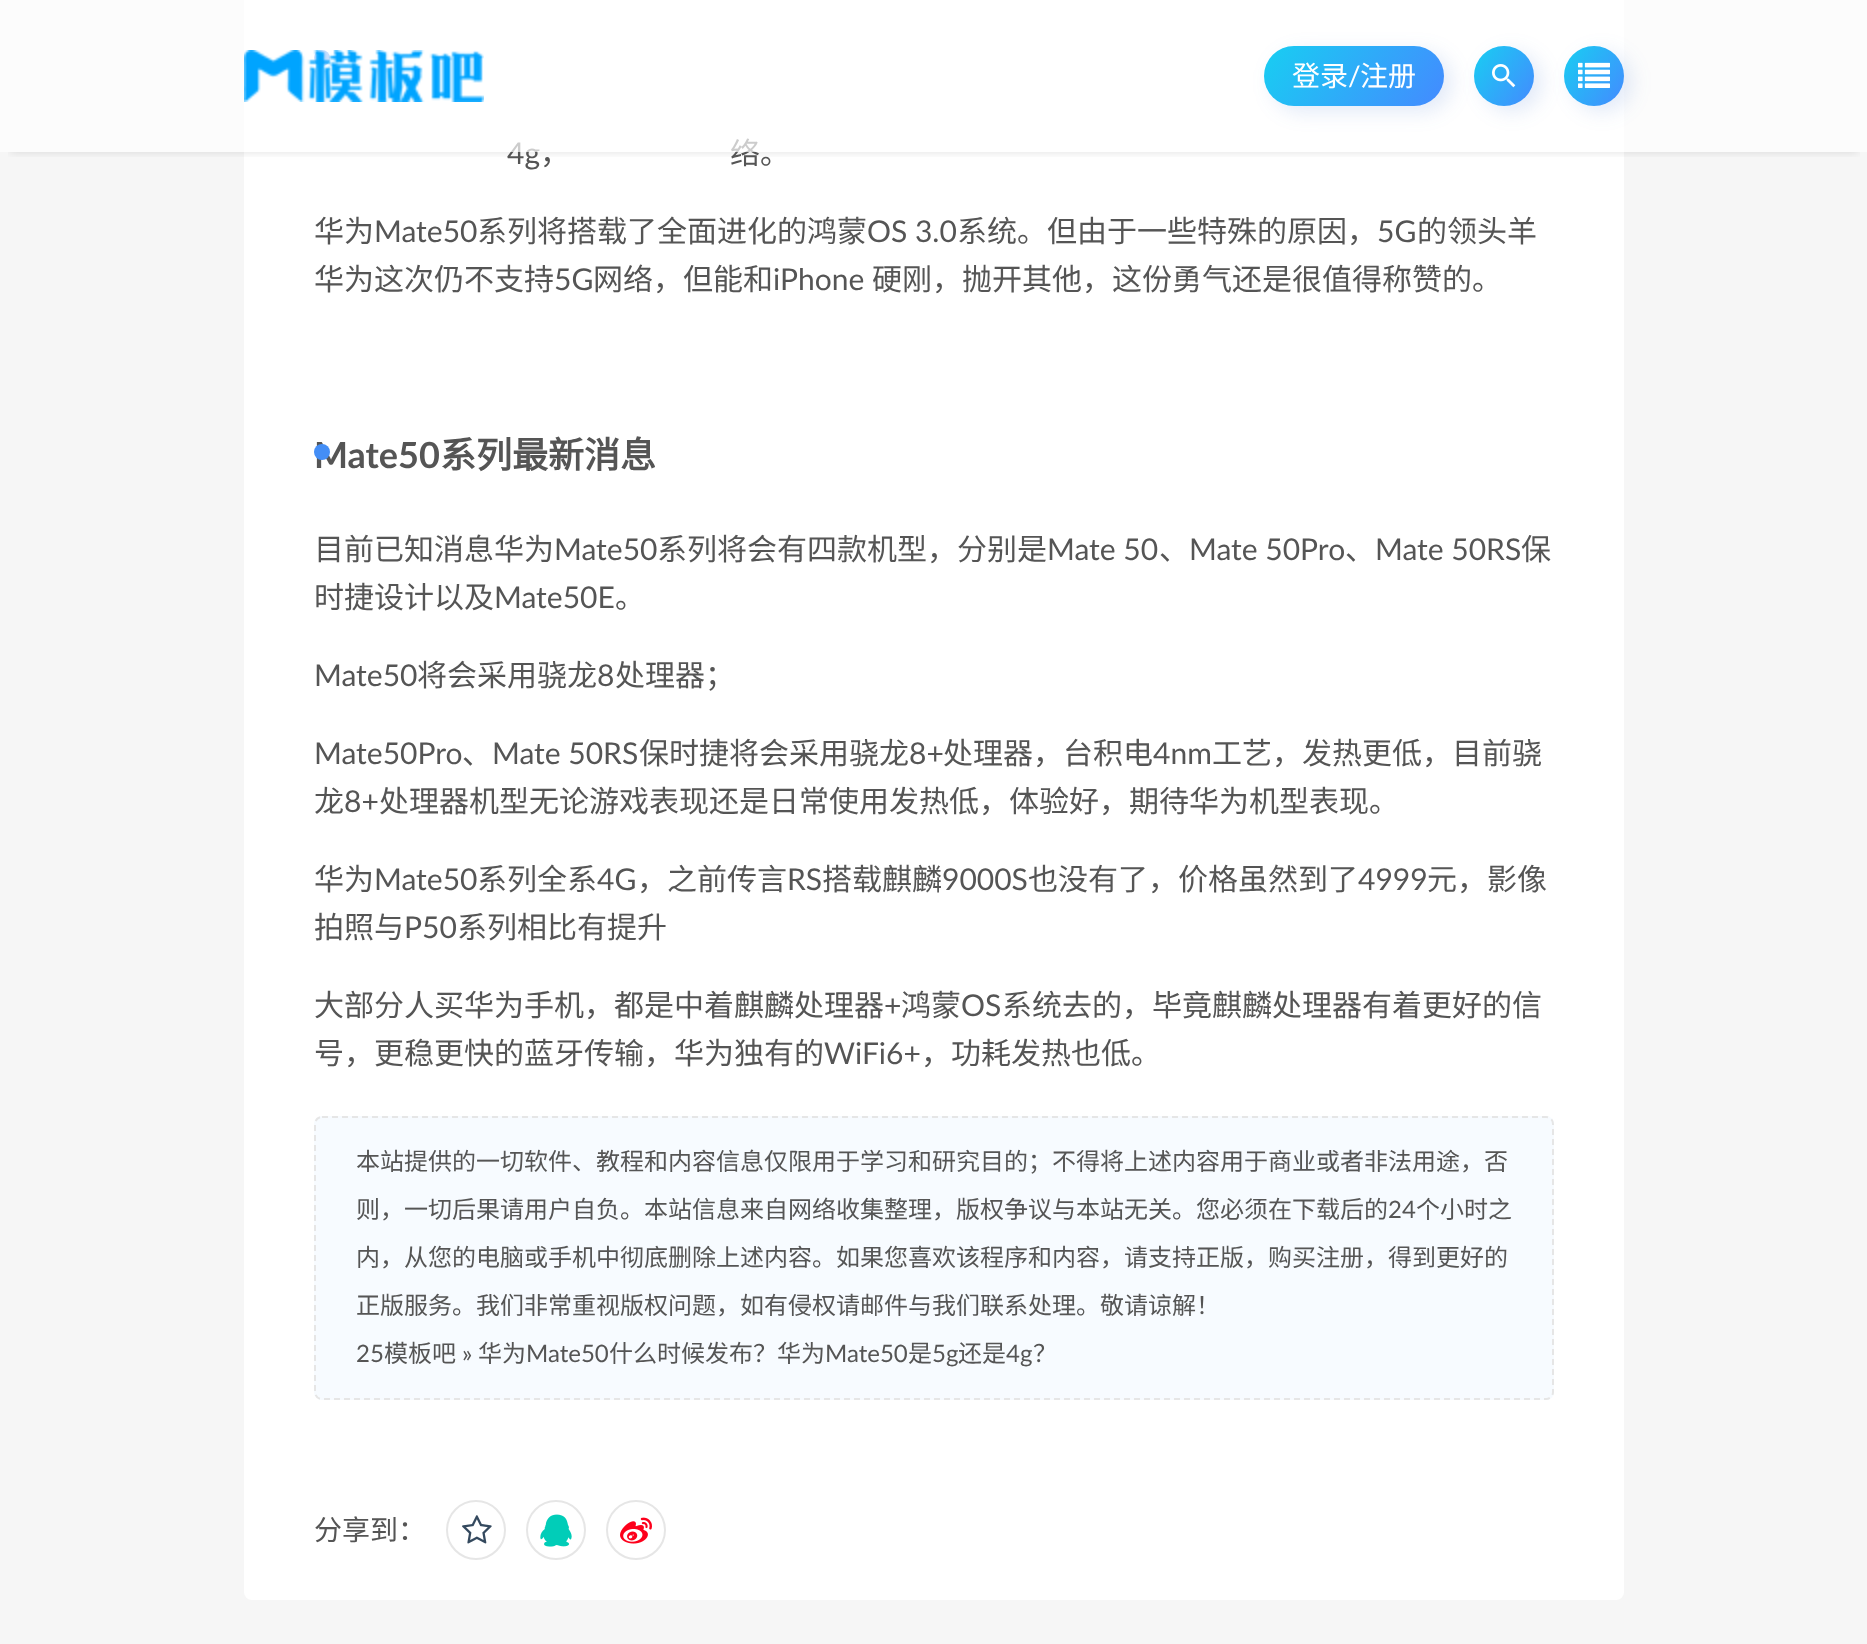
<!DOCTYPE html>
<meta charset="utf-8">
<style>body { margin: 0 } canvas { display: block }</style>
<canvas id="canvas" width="1867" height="1644"></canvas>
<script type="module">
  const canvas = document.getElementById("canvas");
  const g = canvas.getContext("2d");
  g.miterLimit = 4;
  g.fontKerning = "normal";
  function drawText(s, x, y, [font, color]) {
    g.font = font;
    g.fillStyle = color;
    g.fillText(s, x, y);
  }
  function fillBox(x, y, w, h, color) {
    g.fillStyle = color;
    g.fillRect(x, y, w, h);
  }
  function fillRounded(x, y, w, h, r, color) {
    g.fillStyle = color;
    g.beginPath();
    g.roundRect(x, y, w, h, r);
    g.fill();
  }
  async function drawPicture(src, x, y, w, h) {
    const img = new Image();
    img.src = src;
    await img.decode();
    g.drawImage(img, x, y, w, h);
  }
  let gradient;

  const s1 = ["30px Lato", "#555555"];
  const s2 = ["30px Noto Sans CJK SC", "#555555"];
  const s3 = ["28px Noto Sans CJK SC", "#FFFFFF"];
  const s4 = ["28px Lato", "#FFFFFF"];
  const s5 = ["bold 36px Lato", "#555555"];
  const s6 = ["bold 36px Noto Sans CJK SC", "#555555"];
  const s7 = ["24px Noto Sans CJK SC", "#555555"];
  const s8 = ["24px Lato", "#555555"];
  const s9 = ["28px Noto Sans CJK SC", "#555555"];

  fillBox(0, 0, 1867, 1644, "#F6F6F6");
  fillRounded(244, -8, 1380, 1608, 8, "#FFFFFF");
  g.fillStyle = "#448EF6";
  g.beginPath();
  g.arc(322, 58, 8, 0, Math.PI * 2);
  g.fill();
  g.save();
  g.beginPath();
  g.rect(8, 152, 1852, 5);
  g.clip();
  g.fillStyle = "rgba(0, 0, 0, 0.12)";
  g.filter = "blur(5px)";
  g.beginPath();
  g.rect(10, 20, 1848, 132);
  g.fill();
  g.filter = "none";
  g.restore();
  drawText("4g", 507, 164, s1);
  drawText("络。", 730, 164, s2);
  fillBox(0, 0, 1867, 152, "rgba(255, 255, 255, 0.7)");
  await drawPicture("pic1.png", 244, 50, 240, 52);
  g.fillStyle = "rgba(47, 107, 208, 0.14)";
  g.filter = "blur(10px)";
  g.beginPath();
  g.roundRect(1272, 52, 180, 60, 30);
  g.fill();
  g.filter = "none";
  gradient = g.createLinearGradient(1280, 24, 1428, 128);
  gradient.addColorStop(0, "#18CEF2");
  gradient.addColorStop(1, "#448AFF");
  g.fillStyle = gradient;
  g.beginPath();
  g.roundRect(1264, 46, 180, 60, 30);
  g.fill();
  drawText("登录", 1292, 86, s3);
  drawText("/", 1348, 86, s4);
  drawText("注册", 1360, 86, s3);
  g.fillStyle = "rgba(47, 107, 208, 0.14)";
  g.filter = "blur(10px)";
  g.beginPath();
  g.roundRect(1572, 52, 60, 60, 30);
  g.fill();
  g.filter = "none";
  gradient = g.createLinearGradient(1560, 52, 1628, 100);
  gradient.addColorStop(0, "#18CEF2");
  gradient.addColorStop(1, "#448AFF");
  g.fillStyle = gradient;
  g.beginPath();
  g.arc(1594, 76, 30, 0, Math.PI * 2);
  g.fill();
  g.fillStyle = "rgba(47, 107, 208, 0.14)";
  g.filter = "blur(10px)";
  g.beginPath();
  g.roundRect(1482, 52, 60, 60, 30);
  g.fill();
  g.filter = "none";
  gradient = g.createLinearGradient(1470, 52, 1538, 100);
  gradient.addColorStop(0, "#18CEF2");
  gradient.addColorStop(1, "#448AFF");
  g.fillStyle = gradient;
  g.beginPath();
  g.arc(1504, 76, 30, 0, Math.PI * 2);
  g.fill();
  await drawPicture("pic2.png", 1492, 64, 24, 24);
  await drawPicture("pic3.png", 1578, 62, 32, 26);
  drawText("，", 540, 164, s2);
  drawText("华为", 314, 242, s2);
  drawText("Mate50", 374, 242, s1);
  drawText("系列将搭载了全面进化的鸿蒙", 477, 242, s2);
  drawText("OS 3.0", 867, 242, s1);
  drawText("系统。但由于一些特殊的原因，", 957, 242, s2);
  drawText("5G", 1377, 242, s1);
  drawText("的领头羊", 1417, 242, s2);
  drawText("华为这次仍不支持", 314, 290, s2);
  drawText("5G", 554, 290, s1);
  drawText("网络，但能和", 593, 290, s2);
  drawText("iPhone", 773, 290, s1);
  drawText("硬刚，抛开其他，这份勇气还是很值得称赞的。", 872, 290, s2);
  drawText("Mate50", 314, 468, s5);
  drawText("系列最新消息", 440, 468, s6);
  g.fillStyle = "#448EF6";
  g.beginPath();
  g.arc(322, 452, 8, 0, Math.PI * 2);
  g.fill();
  drawText("目前已知消息华为", 314, 560, s2);
  drawText("Mate50", 554, 560, s1);
  drawText("系列将会有四款机型，分别是", 657, 560, s2);
  drawText("Mate 50", 1047, 560, s1);
  drawText("、", 1159, 560, s2);
  drawText("Mate 50Pro", 1189, 560, s1);
  drawText("、", 1345, 560, s2);
  drawText("Mate 50RS", 1375, 560, s1);
  drawText("保", 1521, 560, s2);
  drawText("时捷设计以及", 314, 608, s2);
  drawText("Mate50E", 494, 608, s1);
  drawText("。", 615, 608, s2);
  drawText("Mate50", 314, 686, s1);
  drawText("将会采用骁龙", 417, 686, s2);
  drawText("8", 597, 686, s1);
  drawText("处理器；", 615, 686, s2);
  drawText("Mate50Pro", 314, 764, s1);
  drawText("、", 462, 764, s2);
  drawText("Mate 50RS", 492, 764, s1);
  drawText("保时捷将会采用骁龙", 639, 764, s2);
  drawText("8+", 909, 764, s1);
  drawText("处理器，台积电", 943, 764, s2);
  drawText("4nm", 1153, 764, s1);
  drawText("工艺，发热更低，目前骁", 1212, 764, s2);
  drawText("龙", 314, 812, s2);
  drawText("8+", 344, 812, s1);
  drawText("处理器机型无论游戏表现还是日常使用发热低，体验好，期待华为机型表现。", 379, 812, s2);
  drawText("华为", 314, 890, s2);
  drawText("Mate50", 374, 890, s1);
  drawText("系列全系", 477, 890, s2);
  drawText("4G", 597, 890, s1);
  drawText("，之前传言", 637, 890, s2);
  drawText("RS", 787, 890, s1);
  drawText("搭载麒麟", 822, 890, s2);
  drawText("9000S", 942, 890, s1);
  drawText("也没有了，价格虽然到了", 1028, 890, s2);
  drawText("4999", 1358, 890, s1);
  drawText("元，影像", 1427, 890, s2);
  drawText("拍照与", 314, 938, s2);
  drawText("P50", 404, 938, s1);
  drawText("系列相比有提升", 457, 938, s2);
  drawText("大部分人买华为手机，都是中着麒麟处理器", 314, 1016, s2);
  drawText("+", 884, 1016, s1);
  drawText("鸿蒙", 901, 1016, s2);
  drawText("OS", 961, 1016, s1);
  drawText("系统去的，毕竟麒麟处理器有着更好的信", 1002, 1016, s2);
  drawText("号，更稳更快的蓝牙传输，华为独有的", 314, 1064, s2);
  drawText("WiFi6+", 824, 1064, s1);
  drawText("，功耗发热也低。", 921, 1064, s2);
  fillRounded(314, 1116, 1240, 284, 8, "#F7FBFF");
  g.beginPath();
  g.moveTo(322, 1117);
  g.lineTo(1546, 1117);
  g.bezierCurveTo(1550, 1117, 1553, 1120, 1553, 1124);
  g.lineTo(1553, 1392);
  g.bezierCurveTo(1553, 1396, 1550, 1399, 1546, 1399);
  g.lineTo(322, 1399);
  g.bezierCurveTo(318, 1399, 315, 1396, 315, 1392);
  g.lineTo(315, 1124);
  g.bezierCurveTo(315, 1120, 318, 1117, 322, 1117);
  g.closePath();
  g.strokeStyle = "#E6E6E6";
  g.lineWidth = 2;
  g.setLineDash([6, 4]);
  g.stroke();
  drawText("本站提供的一切软件、教程和内容信息仅限用于学习和研究目的；不得将上述内容用于商业或者非法用途，否", 356, 1170, s7);
  drawText("则，一切后果请用户自负。本站信息来自网络收集整理，版权争议与本站无关。您必须在下载后的", 356, 1218, s7);
  drawText("24", 1388, 1218, s8);
  drawText("个小时之", 1416, 1218, s7);
  drawText("内，从您的电脑或手机中彻底删除上述内容。如果您喜欢该程序和内容，请支持正版，购买注册，得到更好的", 356, 1266, s7);
  drawText("正版服务。我们非常重视版权问题，如有侵权请邮件与我们联系处理。敬请谅解！", 356, 1314, s7);
  drawText("25", 356, 1362, s8);
  drawText("模板吧", 384, 1362, s7);
  drawText("»", 462, 1362, s8);
  drawText("华为", 478, 1362, s7);
  drawText("Mate50", 526, 1362, s8);
  drawText("什么时候发布？华为", 609, 1362, s7);
  drawText("Mate50", 825, 1362, s8);
  drawText("是", 908, 1362, s7);
  drawText("5g", 932, 1362, s8);
  drawText("还是", 958, 1362, s7);
  drawText("4g", 1006, 1362, s8);
  drawText("？", 1033, 1362, s7);
  drawText("分享到：", 314, 1540, s9);
  g.beginPath();
  g.arc(476, 1530, 29, 0, Math.PI * 2);
  g.setLineDash([]);
  g.stroke();
  await drawPicture("pic4.png", 462, 1515, 30, 29);
  g.beginPath();
  g.arc(556, 1530, 29, 0, Math.PI * 2);
  g.stroke();
  await drawPicture("pic5.png", 540, 1514, 32, 33);
  g.beginPath();
  g.arc(636, 1530, 29, 0, Math.PI * 2);
  g.stroke();
  await drawPicture("pic6.png", 620, 1517, 32, 27);
</script>
